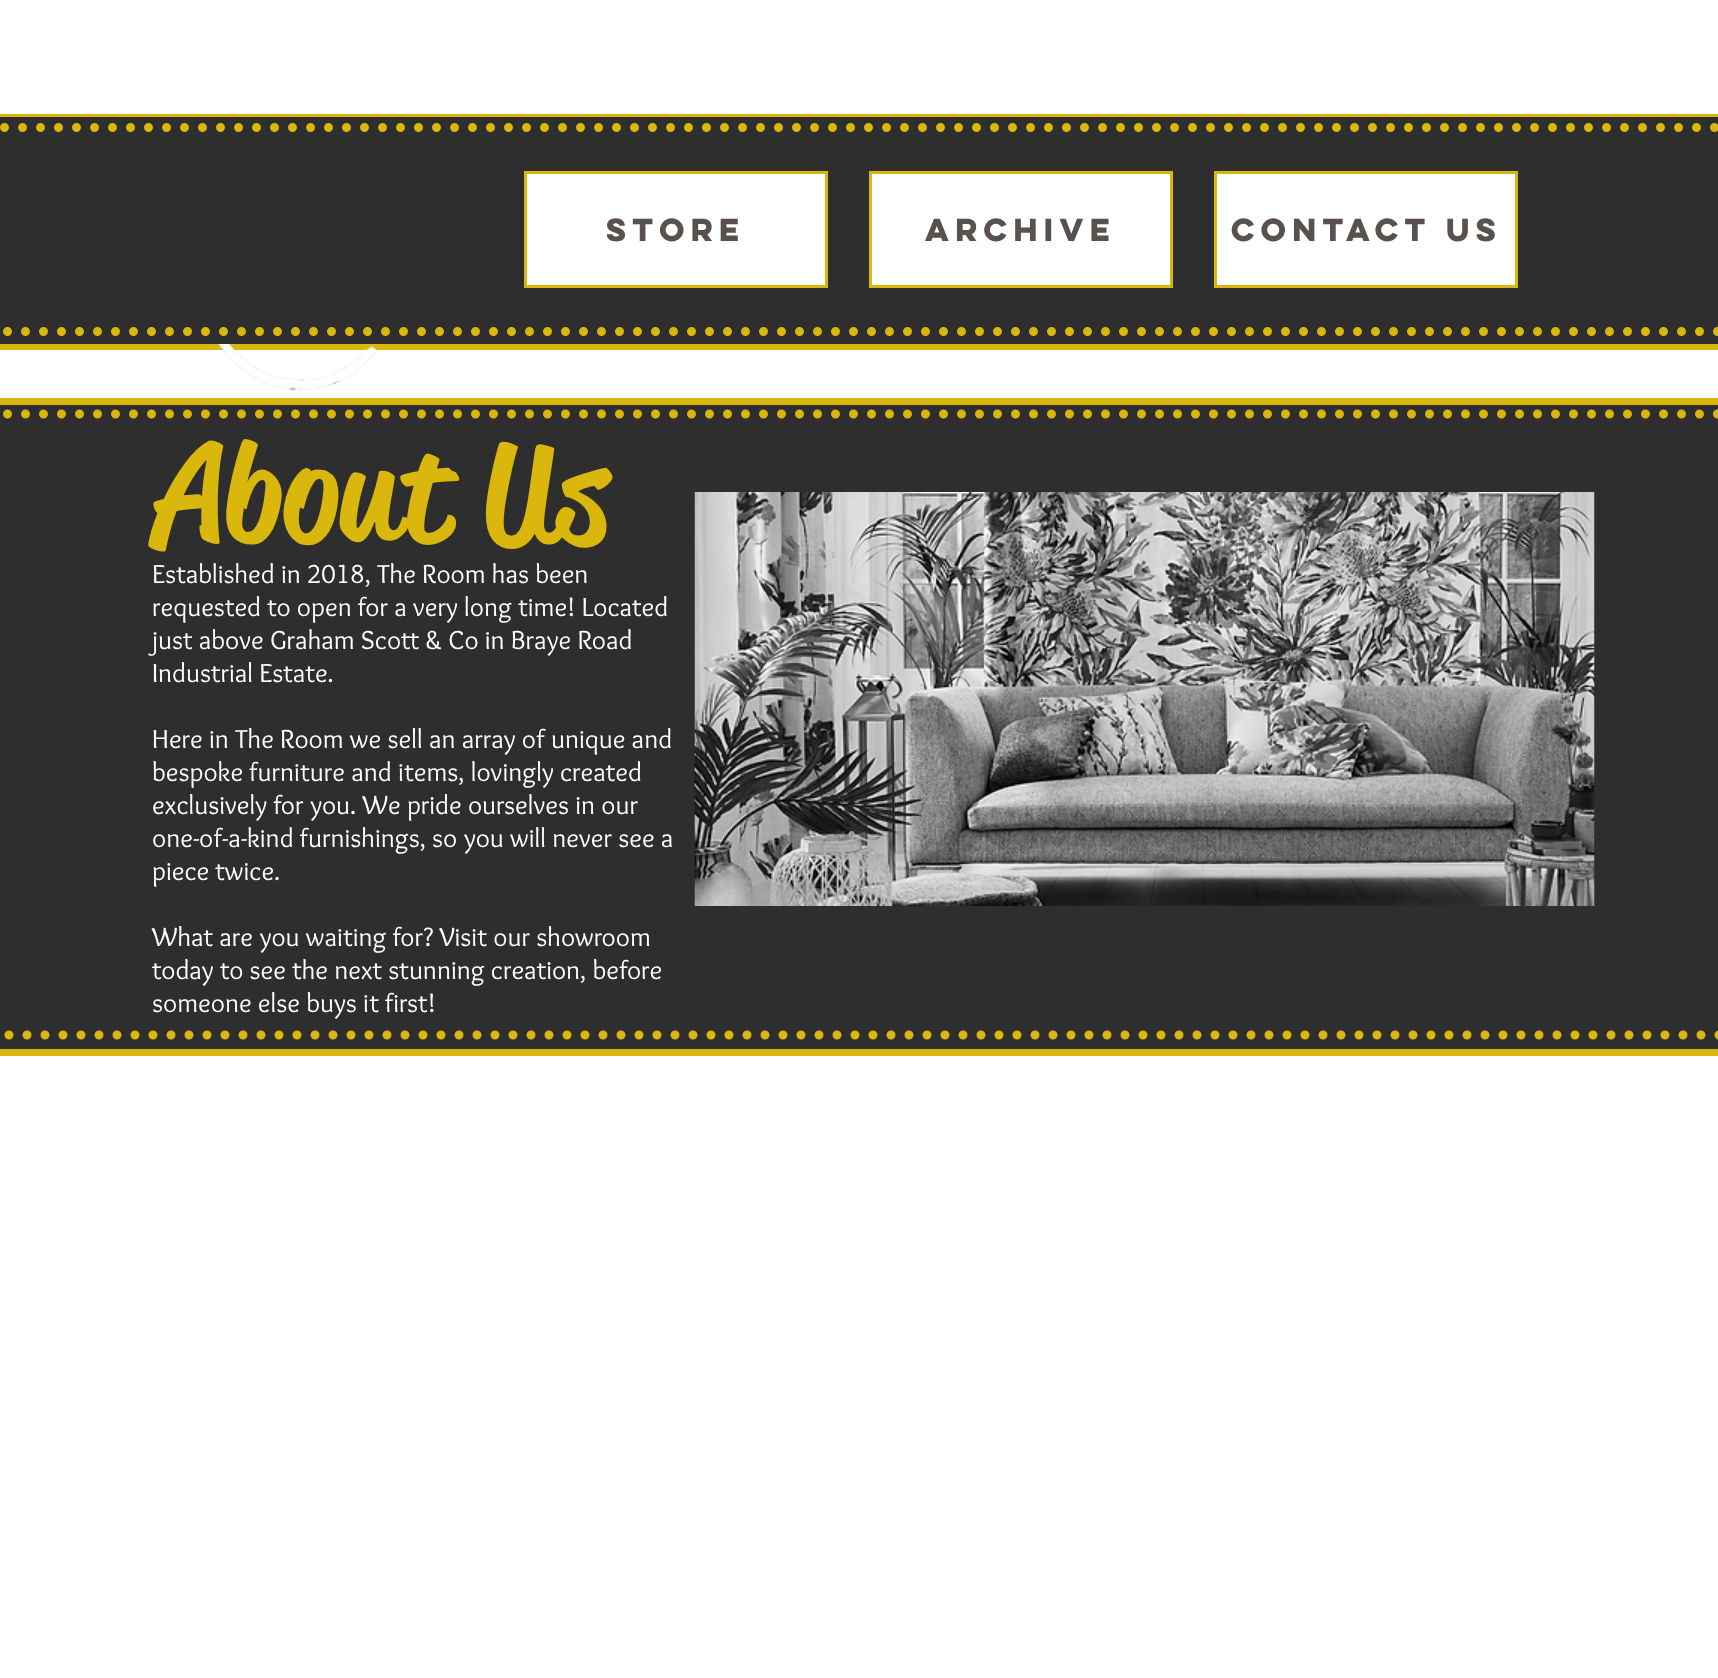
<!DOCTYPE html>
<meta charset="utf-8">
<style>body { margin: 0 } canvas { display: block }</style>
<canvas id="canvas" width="1718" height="1678"></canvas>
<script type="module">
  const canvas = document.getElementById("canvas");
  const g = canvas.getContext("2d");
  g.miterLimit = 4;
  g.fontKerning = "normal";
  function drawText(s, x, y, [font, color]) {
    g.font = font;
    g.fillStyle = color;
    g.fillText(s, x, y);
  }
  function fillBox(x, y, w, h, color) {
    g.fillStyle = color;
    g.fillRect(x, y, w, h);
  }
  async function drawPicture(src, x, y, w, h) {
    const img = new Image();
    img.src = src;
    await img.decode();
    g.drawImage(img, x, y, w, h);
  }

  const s1 = ["bold 28.5px 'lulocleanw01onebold'", "#59514D"];
  const s2 = ["500 136.5px 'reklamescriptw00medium'", "#D9B70D"];
  const s3 = ["27px Overlock", "#FFFFFF"];

  fillBox(0, 0, 1718, 1678, "#FFFFFF");
  fillBox(0, 114, 1718, 3, "#D9B70D");
  fillBox(0, 117, 1718, 227, "#2F2E2E");
  g.beginPath();
  g.moveTo(-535.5, 127.5);
  g.lineTo(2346, 127.5);
  g.strokeStyle = "#D9B70D";
  g.lineWidth = 9;
  g.lineCap = "round";
  g.setLineDash([0, 18]);
  g.stroke();
  g.fillStyle = "#FFFFFF";
  g.beginPath();
  g.rect(525.5, 172.5, 301, 114);
  g.fill();
  g.lineWidth = 3;
  g.setLineDash([]);
  g.stroke();
  drawText("store", 606, 241, s1);
  g.fillStyle = "#FFFFFF";
  g.beginPath();
  g.rect(870.5, 172.5, 301, 114);
  g.fill();
  g.stroke();
  drawText("archive", 925, 241, s1);
  g.fillStyle = "#FFFFFF";
  g.beginPath();
  g.rect(1215.5, 172.5, 301, 114);
  g.fill();
  g.stroke();
  drawText("contact us", 1231, 241, s1);
  g.beginPath();
  g.moveTo(-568.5, 331.5);
  g.lineTo(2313, 331.5);
  g.lineWidth = 9;
  g.setLineDash([0, 18]);
  g.stroke();
  fillBox(0, 344, 1718, 6, "#D9B70D");
  await drawPicture("pic1.png", 217, 344, 160, 47);
  fillBox(0, 398, 1718, 7, "#D9B70D");
  fillBox(0, 405, 1718, 644, "#2F2E2E");
  g.beginPath();
  g.moveTo(-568.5, 414);
  g.lineTo(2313, 414);
  g.stroke();
  g.letterSpacing = "1.25px";
  drawText("About Us", 155, 540, s2);
  await drawPicture("pic2.png", 694, 492, 901, 414);
  g.letterSpacing = "0px";
  drawText("Established in 2018, The Room has been", 152, 583, s3);
  drawText("requested to open for a very long time! Located", 152, 616, s3);
  drawText("just above Graham Scott & Co in Braye Road", 152, 649, s3);
  drawText("Industrial Estate.", 152, 682, s3);
  drawText("Here in The Room we sell an array of unique and", 152, 748, s3);
  drawText("bespoke furniture and items, lovingly created", 152, 781, s3);
  drawText("exclusively for you. We pride ourselves in our", 152, 814, s3);
  drawText("one-of-a-kind furnishings, so you will never see a", 152, 847, s3);
  drawText("piece twice.", 152, 880, s3);
  drawText("What are you waiting for? Visit our showroom", 152, 946, s3);
  drawText("today to see the next stunning creation, before", 152, 979, s3);
  drawText("someone else buys it first!", 152, 1012, s3);
  g.beginPath();
  g.moveTo(-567, 1035);
  g.lineTo(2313, 1035);
  g.stroke();
  fillBox(0, 1049, 1718, 7, "#D9B70D");
</script>
